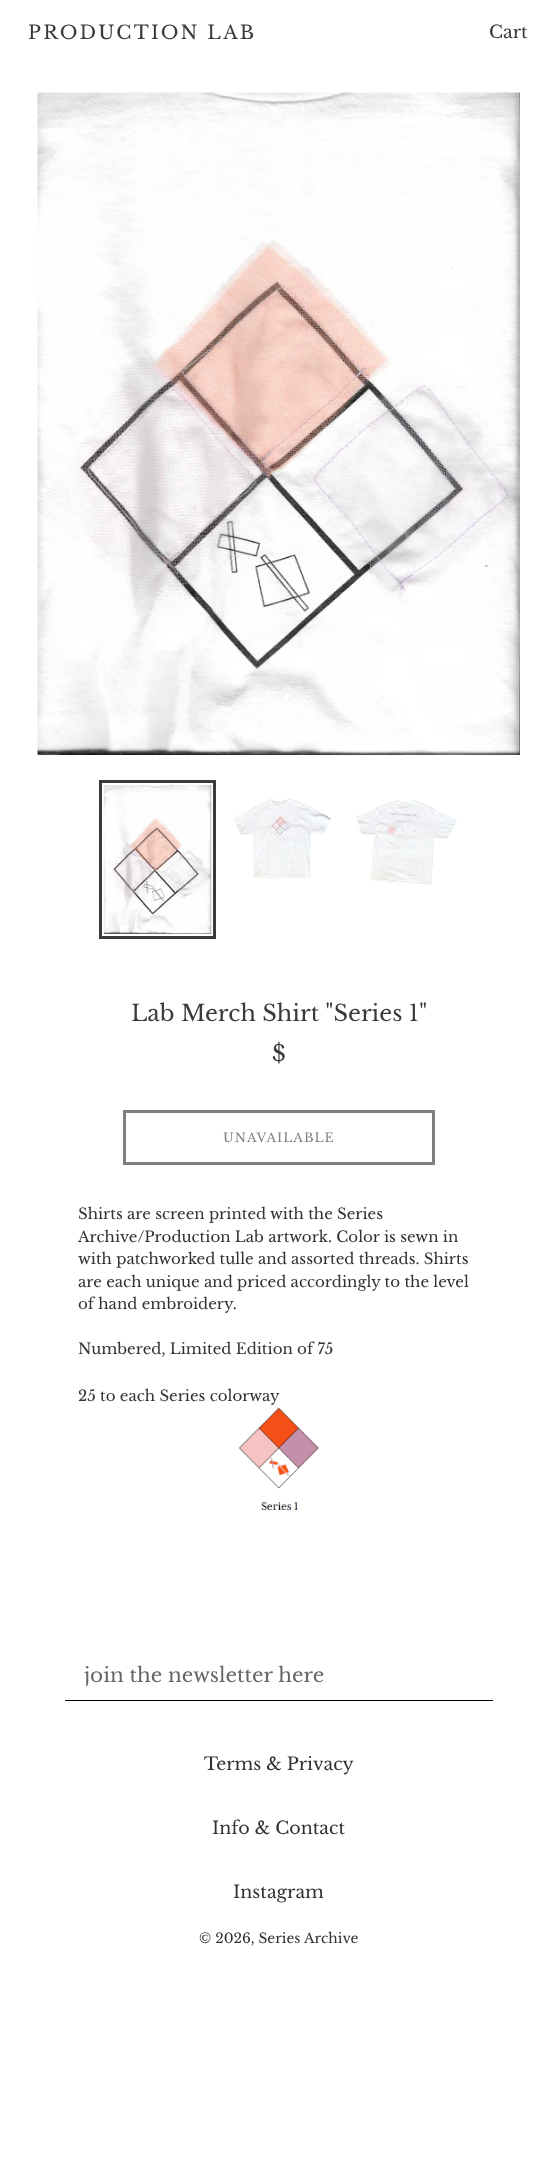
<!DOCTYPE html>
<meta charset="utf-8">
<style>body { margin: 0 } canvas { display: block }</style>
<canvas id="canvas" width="557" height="2168"></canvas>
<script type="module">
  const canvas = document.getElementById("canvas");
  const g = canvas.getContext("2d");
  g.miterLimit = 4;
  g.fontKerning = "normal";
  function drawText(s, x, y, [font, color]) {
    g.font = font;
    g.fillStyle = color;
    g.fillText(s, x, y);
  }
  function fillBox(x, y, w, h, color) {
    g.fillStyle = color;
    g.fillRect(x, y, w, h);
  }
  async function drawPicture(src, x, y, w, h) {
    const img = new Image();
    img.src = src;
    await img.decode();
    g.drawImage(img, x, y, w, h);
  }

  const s1 = ["18.75px Libre Baskerville", "#3A3A3A"];
  const s2 = ["17.5px Libre Baskerville", "#3A3A3A"];
  const s3 = ["22.5px Libre Baskerville", "#3A3A3A"];
  const s4 = ["22px Libre Baskerville", "#3A3A3A"];
  const s5 = ["12.5px Libre Baskerville", "#808080"];
  const s6 = ["15px Libre Baskerville", "#333232"];
  const s7 = ["20px Libre Baskerville", "#666666"];
  const s8 = ["17.5px Libre Baskerville", "#333232"];
  const s9 = ["13.75px Libre Baskerville", "#333232"];

  fillBox(0, 0, 557, 2168, "#FFFFFF");
  g.letterSpacing = "2.25px";
  drawText("PRODUCTION LAB", 28, 39, s1);
  g.letterSpacing = "0px";
  drawText("Cart", 489, 38, s2);
  await drawPicture("pic1.png", 37, 92, 483, 663);
  g.strokeStyle = "#3A3A3A";
  g.lineWidth = 3;
  g.strokeRect(100.5, 781.5, 114, 156);
  await drawPicture("pic2.png", 103, 785, 109, 149);
  await drawPicture("pic3.png", 233, 798, 98, 81);
  await drawPicture("pic4.png", 356, 799, 101, 86);
  drawText("Lab Merch Shirt \"Series 1\"", 131, 1021, s3);
  drawText("$", 272, 1061, s4);
  g.strokeStyle = "#808080";
  g.strokeRect(124.5, 1111.5, 309, 52);
  g.letterSpacing = "1px";
  drawText("UNAVAILABLE", 223, 1142, s5);
  g.letterSpacing = "0px";
  drawText("Shirts are screen printed with the Series", 78, 1219, s6);
  drawText("Archive/Production Lab artwork. Color is sewn in", 78, 1242, s6);
  drawText("with patchworked tulle and assorted threads. Shirts", 78, 1264, s6);
  drawText("are each unique and priced accordingly to the level", 78, 1287, s6);
  drawText("of hand embroidery.", 78, 1309, s6);
  drawText("Numbered, Limited Edition of 75", 78, 1354, s6);
  drawText("25 to each Series colorway", 78, 1401, s6);
  await drawPicture("pic5.png", 238, 1407, 81, 103);
  fillBox(65, 1700, 428, 1, "#000000");
  g.save();
  g.beginPath();
  g.rect(84, 1661, 390, 25);
  g.clip();
  drawText("join the newsletter here", 84, 1682, s7);
  g.restore();
  drawText("Terms & Privacy", 204, 1770, s8);
  drawText("Info & Contact", 212, 1834, s8);
  drawText("Instagram", 233, 1898, s8);
  drawText("© 2026, Series Archive", 199, 1943, s9);
</script>
